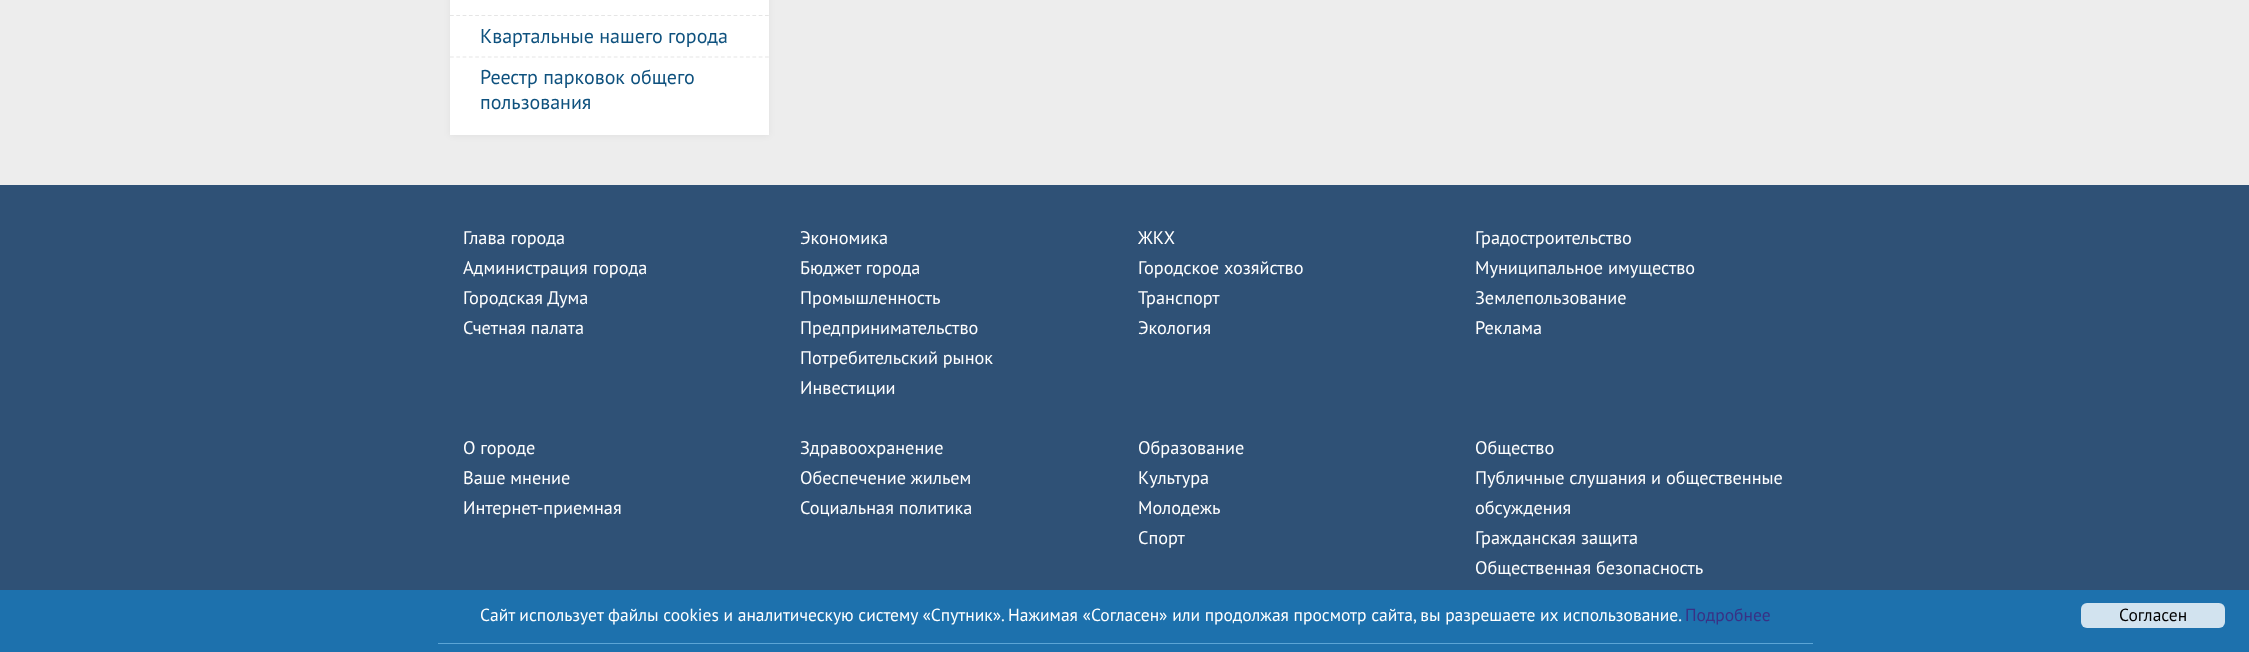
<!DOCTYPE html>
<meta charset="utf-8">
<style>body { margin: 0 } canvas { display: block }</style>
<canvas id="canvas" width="2249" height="652"></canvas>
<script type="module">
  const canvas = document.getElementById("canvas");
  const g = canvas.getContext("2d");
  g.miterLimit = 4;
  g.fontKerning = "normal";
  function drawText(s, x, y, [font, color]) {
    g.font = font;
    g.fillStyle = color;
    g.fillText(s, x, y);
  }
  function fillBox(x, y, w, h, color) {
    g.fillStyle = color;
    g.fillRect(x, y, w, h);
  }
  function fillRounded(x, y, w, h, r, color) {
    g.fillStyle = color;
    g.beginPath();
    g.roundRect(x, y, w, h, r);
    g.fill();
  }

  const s1 = ["20px PT Sans", "#0E517E"];
  const s2 = ["18.25px PT Sans", "#FFFFFF"];
  const s3 = ["17.5px PT Sans", "#FFFFFF"];
  const s4 = ["17.5px PT Sans", "#393185"];
  const s5 = ["17.5px PT Sans", "#000000"];

  fillBox(0, 0, 2249, 652, "#EDEDED");
  g.fillStyle = "rgba(0, 0, 0, 0.05)";
  g.filter = "blur(3px)";
  g.beginPath();
  g.rect(450, -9, 319, 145);
  g.fill();
  g.filter = "none";
  fillBox(450, 0, 319, 135, "#FFFFFF");
  g.beginPath();
  g.moveTo(450, 15.5);
  g.lineTo(769, 15.5);
  g.strokeStyle = "#E5E5E5";
  g.lineWidth = 1.2;
  g.setLineDash([3.75, 2.55]);
  g.stroke();
  g.beginPath();
  g.moveTo(450, 57);
  g.lineTo(769, 57);
  g.stroke();
  drawText("Квартальные нашего города", 480, 43, s1);
  drawText("Реестр парковок общего", 480, 84, s1);
  drawText("пользования", 480, 109, s1);
  fillBox(0, 185, 2249, 405, "#2F5176");
  fillBox(0, 590, 2249, 62, "#1D71AD");
  drawText("Глава города", 463, 244, s2);
  drawText("Администрация города", 463, 274, s2);
  drawText("Городская Дума", 463, 304, s2);
  drawText("Счетная палата", 463, 334, s2);
  drawText("Экономика", 800, 244, s2);
  drawText("Бюджет города", 800, 274, s2);
  drawText("Промышленность", 800, 304, s2);
  drawText("Предпринимательство", 800, 334, s2);
  drawText("Потребительский рынок", 800, 364, s2);
  drawText("Инвестиции", 800, 394, s2);
  drawText("ЖКХ", 1138, 244, s2);
  drawText("Городское хозяйство", 1138, 274, s2);
  drawText("Транспорт", 1138, 304, s2);
  drawText("Экология", 1138, 334, s2);
  drawText("Градостроительство", 1475, 244, s2);
  drawText("Муниципальное имущество", 1475, 274, s2);
  drawText("Землепользование", 1475, 304, s2);
  drawText("Реклама", 1475, 334, s2);
  drawText("О городе", 463, 454, s2);
  drawText("Ваше мнение", 463, 484, s2);
  drawText("Интернет-приемная", 463, 514, s2);
  drawText("Здравоохранение", 800, 454, s2);
  drawText("Обеспечение жильем", 800, 484, s2);
  drawText("Социальная политика", 800, 514, s2);
  drawText("Образование", 1138, 454, s2);
  drawText("Культура", 1138, 484, s2);
  drawText("Молодежь", 1138, 514, s2);
  drawText("Спорт", 1138, 544, s2);
  drawText("Общество", 1475, 454, s2);
  drawText("Публичные слушания и общественные", 1475, 484, s2);
  drawText("обсуждения", 1475, 514, s2);
  drawText("Гражданская защита", 1475, 544, s2);
  drawText("Общественная безопасность", 1475, 574, s2);
  fillBox(438, 643, 1375, 1, "#5BA5D6");
  drawText("Сайт использует файлы cookies и аналитическую систему «Спутник». Нажимая «Согласен» или продолжая просмотр сайта, вы разрешаете их использование.", 480, 621, s3);
  drawText("Подробнее", 1685, 621, s4);
  fillRounded(2081, 603, 144, 25, 6, "#D2E3EF");
  drawText("Согласен", 2119, 621, s5);
</script>
